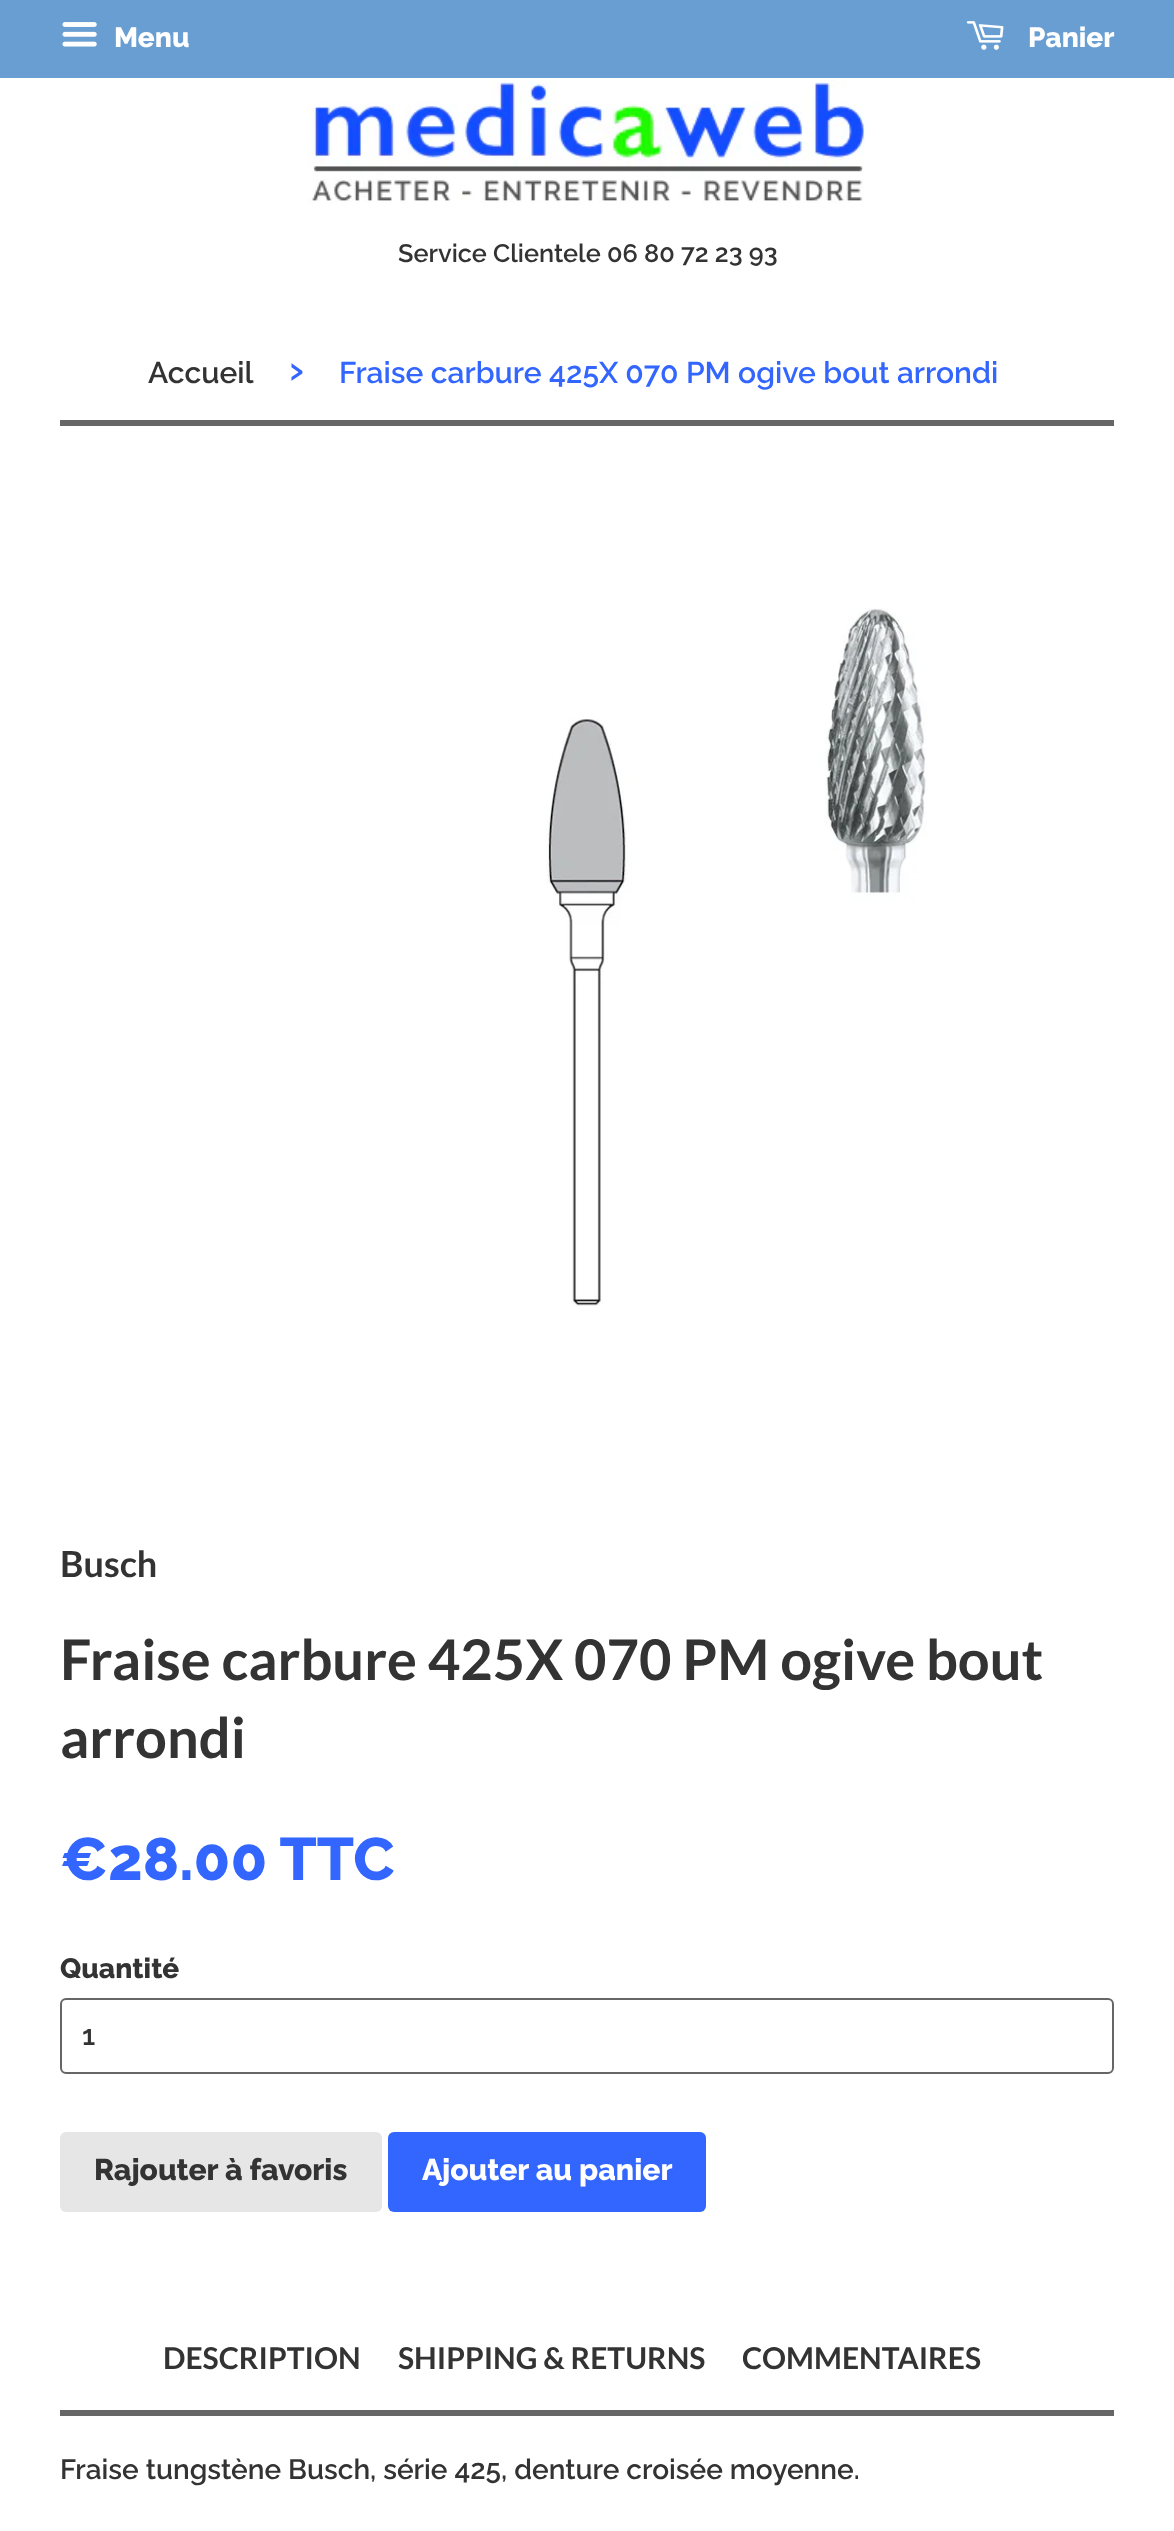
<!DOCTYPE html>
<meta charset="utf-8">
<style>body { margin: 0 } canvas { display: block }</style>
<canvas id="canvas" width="1174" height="2531"></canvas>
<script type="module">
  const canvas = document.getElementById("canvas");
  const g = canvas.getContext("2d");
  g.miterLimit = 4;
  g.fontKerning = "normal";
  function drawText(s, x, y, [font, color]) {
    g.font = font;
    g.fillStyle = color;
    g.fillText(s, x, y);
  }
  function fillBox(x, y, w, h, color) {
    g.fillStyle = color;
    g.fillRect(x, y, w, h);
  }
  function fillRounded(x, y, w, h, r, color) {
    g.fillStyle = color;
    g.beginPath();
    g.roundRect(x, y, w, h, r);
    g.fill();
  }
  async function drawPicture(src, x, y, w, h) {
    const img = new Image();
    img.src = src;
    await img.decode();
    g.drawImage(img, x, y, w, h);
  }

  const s1 = ["800 28px Raleway", "#FFFFFF"];
  const s2 = ["600 25.25px Raleway", "#333333"];
  const s3 = ["600 30px Raleway", "#333333"];
  const s4 = ["600 42px Raleway", "#3366FF"];
  const s5 = ["600 30px Raleway", "#3366FF"];
  const s6 = ["bold 36px Lato", "#333333"];
  const s7 = ["bold 56px Lato", "#333333"];
  const s8 = ["800 60px Raleway", "#3366FF"];
  const s9 = ["800 28px Raleway", "#333333"];
  const s10 = ["600 28px Raleway", "#333333"];
  const s11 = ["800 30px Raleway", "#333333"];
  const s12 = ["800 30px Raleway", "#FFFFFF"];
  const s13 = ["bold 30px Lato", "#333333"];

  fillBox(0, 0, 1174, 2531, "#FFFFFF");
  fillBox(0, 0, 1174, 78, "#689ED2");
  await drawPicture("pic1.png", 62, 22, 35, 25);
  drawText("Menu", 114, 47, s1);
  await drawPicture("pic2.png", 966, 21, 38, 29);
  drawText("Panier", 1028, 47, s1);
  await drawPicture("pic3.png", 308, 80, 557, 123);
  drawText("Service Clientele 06 80 72 23 93", 398, 262, s2);
  fillBox(60, 420, 1054, 6, "#666666");
  drawText("Accueil", 148, 383, s3);
  drawText("›", 289, 383, s4);
  drawText("Fraise carbure 425X 070 PM ogive bout arrondi", 339, 383, s5);
  await drawPicture("pic4.png", 546, 608, 381, 698);
  drawText("Busch", 60, 1577, s6);
  drawText("Fraise carbure 425X 070 PM ogive bout", 60, 1680, s7);
  drawText("arrondi", 60, 1758, s7);
  drawText("€28.00 TTC", 60, 1880, s8);
  drawText("Quantité", 60, 1978, s9);
  g.beginPath();
  g.roundRect(61, 1999, 1052, 74, 5);
  g.strokeStyle = "#666666";
  g.lineWidth = 2;
  g.stroke();
  drawText("1", 82, 2045, s10);
  fillRounded(60, 2132, 322, 80, 6, "#E6E6E6");
  drawText("Rajouter à favoris", 94, 2180, s11);
  fillRounded(388, 2132, 318, 80, 6, "#3366FF");
  drawText("Ajouter au panier", 422, 2180, s12);
  fillBox(60, 2410, 1054, 6, "#666666");
  drawText("DESCRIPTION", 163, 2369, s13);
  drawText("SHIPPING & RETURNS", 398, 2369, s13);
  drawText("COMMENTAIRES", 742, 2369, s13);
  drawText("Fraise tungstène Busch, série 425, denture croisée moyenne.", 60, 2479, s10);
</script>
